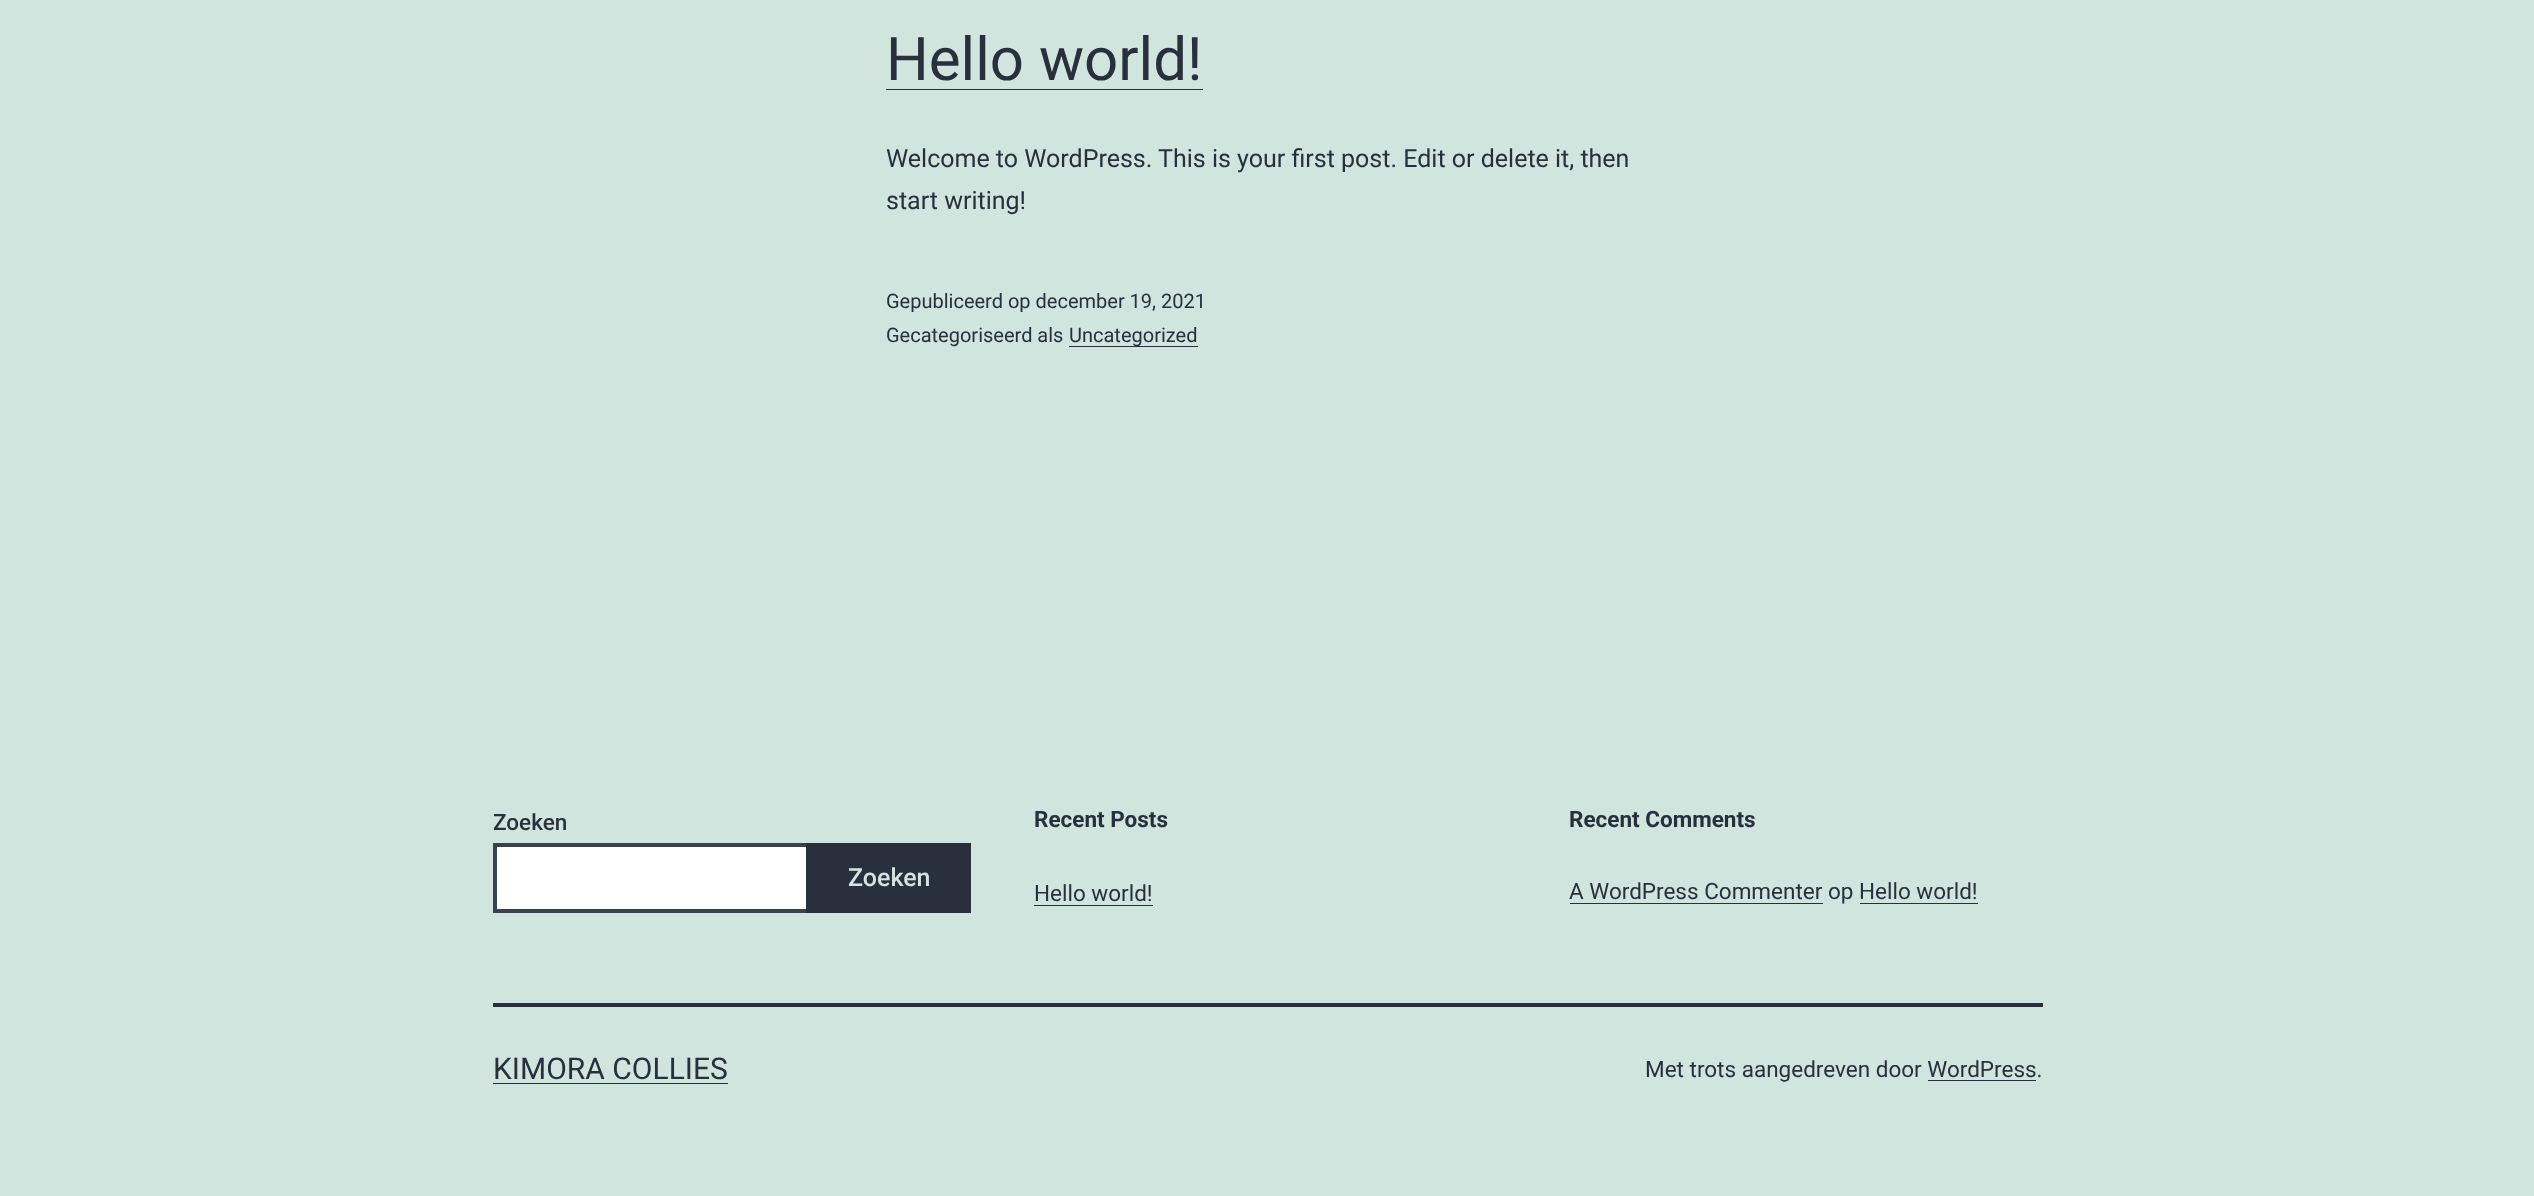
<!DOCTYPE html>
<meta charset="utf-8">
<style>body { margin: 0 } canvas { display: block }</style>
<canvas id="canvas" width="2534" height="1196"></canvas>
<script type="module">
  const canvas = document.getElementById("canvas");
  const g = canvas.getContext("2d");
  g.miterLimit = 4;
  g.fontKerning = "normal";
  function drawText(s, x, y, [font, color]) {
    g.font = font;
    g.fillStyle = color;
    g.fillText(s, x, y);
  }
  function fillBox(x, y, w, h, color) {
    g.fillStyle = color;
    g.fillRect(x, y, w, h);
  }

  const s1 = ["60px Roboto", "#28303D"];
  const s2 = ["25px Roboto", "#28303D"];
  const s3 = ["20px Roboto", "#28303D"];
  const s4 = ["500 22.5px Roboto", "#28303D"];
  const s5 = ["500 25px Roboto", "#D1E4DD"];
  const s6 = ["bold 22.5px Roboto", "#28303D"];
  const s7 = ["22.5px Roboto", "#28303D"];
  const s8 = ["30px Roboto", "#28303D"];

  fillBox(0, 0, 2534, 1196, "#D1E4DD");
  drawText("Hello world!", 886, 80, s1);
  fillBox(886, 89, 317, 1, "#28303D");
  drawText("Welcome to WordPress. This is your first post. Edit or delete it, then", 886, 167, s2);
  drawText("start writing!", 886, 209, s2);
  drawText("Gepubliceerd op december 19, 2021", 886, 308, s3);
  drawText("Gecategoriseerd als", 886, 342, s3);
  fillBox(1069, 346, 129, 1, "#28303D");
  drawText("Uncategorized", 1069, 342, s3);
  drawText("Zoeken", 493, 830, s4);
  g.fillStyle = "#FFFFFF";
  g.beginPath();
  g.rect(495, 845, 313, 66);
  g.fill();
  g.strokeStyle = "#39414D";
  g.lineWidth = 4;
  g.stroke();
  fillBox(806, 843, 165, 70, "#28303D");
  drawText("Zoeken", 848, 886, s5);
  drawText("Recent Posts", 1034, 827, s6);
  drawText("Hello world!", 1034, 901, s7);
  fillBox(1034, 905, 119, 1, "#28303D");
  drawText("Recent Comments", 1569, 827, s6);
  fillBox(1570, 903, 253, 1, "#28303D");
  drawText("A WordPress Commenter op Hello world!", 1569, 899, s7);
  fillBox(1860, 903, 118, 1, "#28303D");
  fillBox(493, 1003, 1550, 4, "#28303D");
  drawText("KIMORA COLLIES", 493, 1079, s8);
  fillBox(493, 1083, 235, 1, "#28303D");
  drawText("Met trots aangedreven door WordPress.", 1645, 1077, s7);
  fillBox(1928, 1080, 108, 1, "#28303D");
</script>
